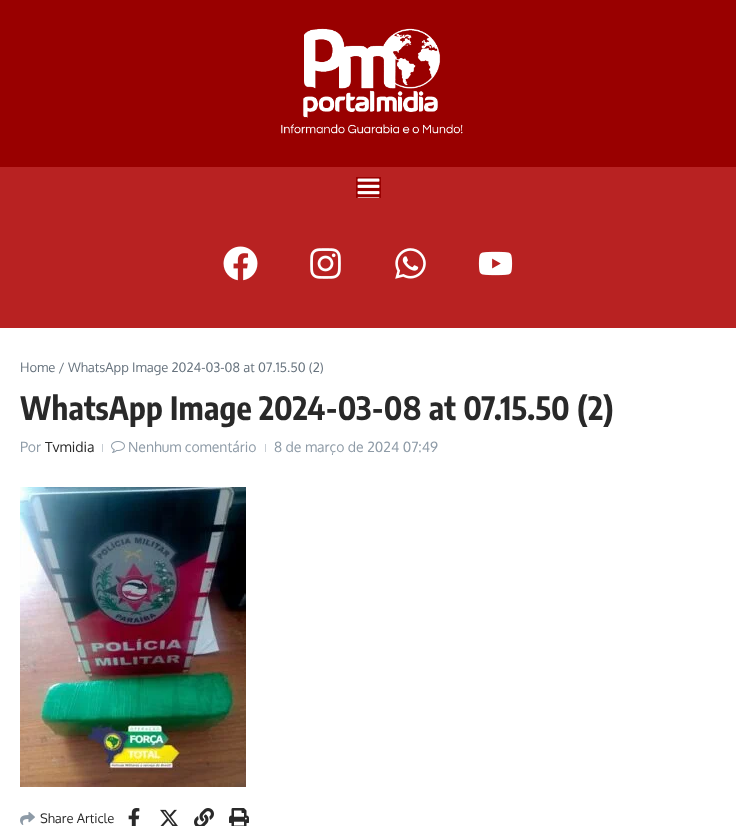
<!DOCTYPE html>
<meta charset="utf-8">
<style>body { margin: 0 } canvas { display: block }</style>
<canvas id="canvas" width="736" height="826"></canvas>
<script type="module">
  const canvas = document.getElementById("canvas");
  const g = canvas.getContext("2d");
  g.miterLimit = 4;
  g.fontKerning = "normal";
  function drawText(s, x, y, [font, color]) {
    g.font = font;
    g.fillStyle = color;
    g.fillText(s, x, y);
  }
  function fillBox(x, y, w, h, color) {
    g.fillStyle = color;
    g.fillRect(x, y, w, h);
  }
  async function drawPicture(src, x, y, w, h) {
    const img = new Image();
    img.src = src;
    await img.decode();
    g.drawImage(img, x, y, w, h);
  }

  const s1 = ["13px Oxygen", "#67737E"];
  const s2 = ["bold 32px Encode Sans Condensed", "#292929"];
  const s3 = ["14px Oxygen", "#8E9BA7"];
  const s4 = ["14px Oxygen", "#292929"];
  const s5 = ["13px Oxygen", "#292929"];

  fillBox(0, 0, 736, 826, "#FFFFFF");
  fillBox(0, 0, 736, 167, "#990000");
  await drawPicture("pic1.png", 281, 28, 182, 106);
  fillBox(0, 167, 736, 161, "#B82222");
  fillBox(356, 177, 25, 21, "#990000");
  await drawPicture("pic2.png", 357, 178, 23, 20);
  await drawPicture("pic3.png", 223, 246, 35, 35);
  await drawPicture("pic4.png", 310, 248, 31, 31);
  await drawPicture("pic5.png", 395, 248, 31, 31);
  await drawPicture("pic6.png", 478, 251, 35, 25);
  drawText("Home / WhatsApp Image 2024-03-08 at 07.15.50 (2)", 20, 372, s1);
  g.letterSpacing = "0.2px";
  drawText("WhatsApp Image 2024-03-08 at 07.15.50 (2)", 20, 420, s2);
  g.letterSpacing = "0px";
  drawText("Por", 20, 452, s3);
  drawText("Tvmidia", 45, 452, s4);
  fillBox(102, 444, 1, 8, "#C7CDD3");
  await drawPicture("pic7.png", 111, 441, 14, 12);
  drawText("Nenhum comentário", 128, 452, s3);
  fillBox(265, 444, 1, 8, "#C7CDD3");
  drawText("8 de março de 2024 07:49", 274, 452, s3);
  await drawPicture("pic8.png", 20, 487, 226, 300);
  await drawPicture("pic9.png", 20, 812, 15, 13);
  drawText("Share Article", 40, 823, s5);
  await drawPicture("pic10.png", 128, 808, 12, 18);
  await drawPicture("pic11.png", 160, 809, 18, 17);
  await drawPicture("pic12.png", 194, 808, 20, 18);
  await drawPicture("pic13.png", 229, 808, 20, 18);
</script>
